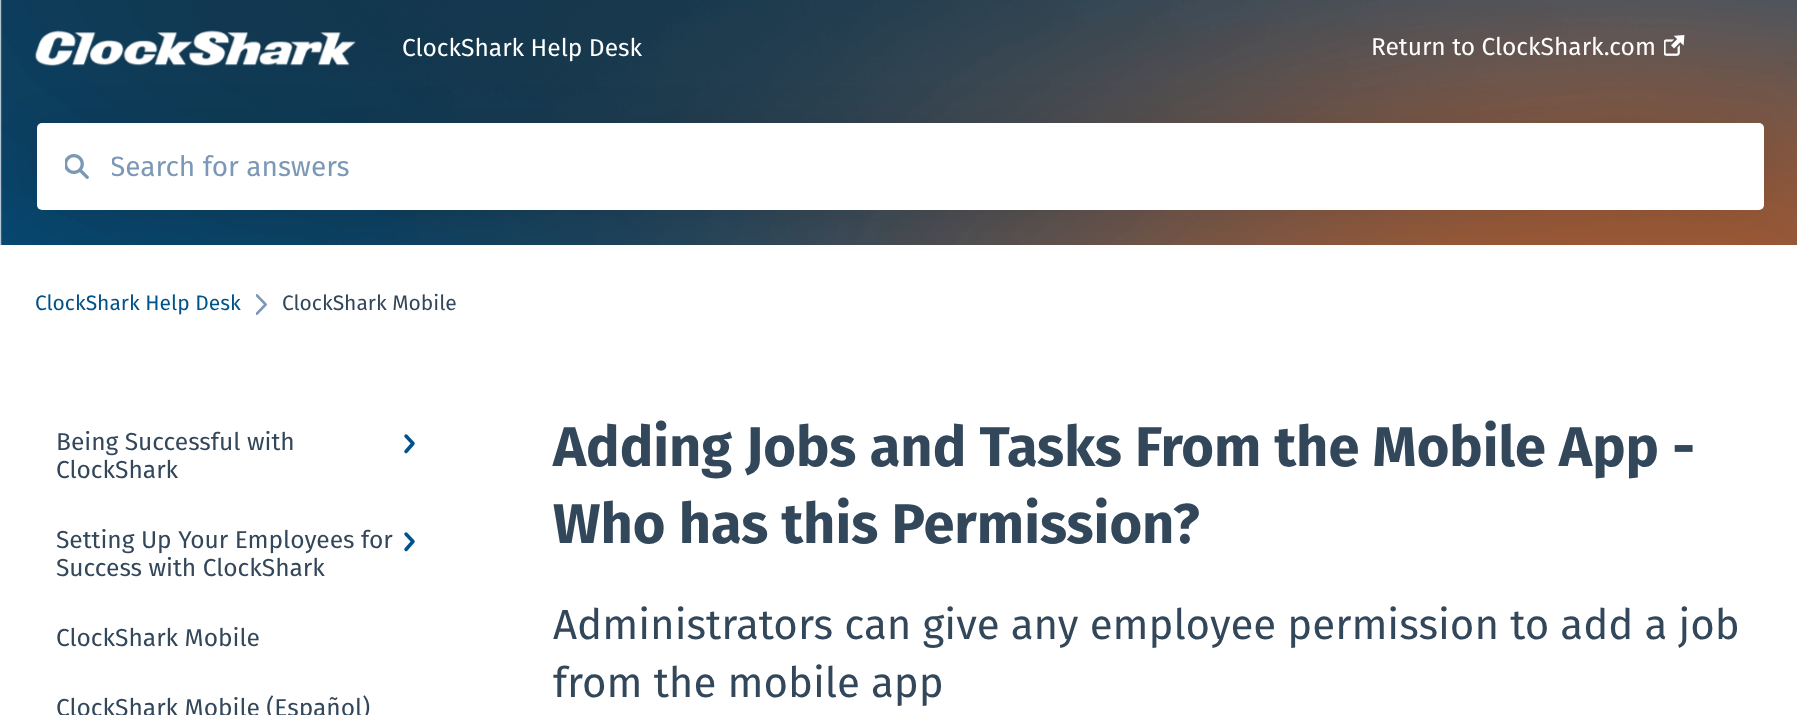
<!DOCTYPE html>
<meta charset="utf-8">
<style>body { margin: 0 } canvas { display: block }</style>
<canvas id="canvas" width="1797" height="715"></canvas>
<script type="module">
  const canvas = document.getElementById("canvas");
  const g = canvas.getContext("2d");
  g.miterLimit = 4;
  g.fontKerning = "normal";
  function drawText(s, x, y, [font, color]) {
    g.font = font;
    g.fillStyle = color;
    g.fillText(s, x, y);
  }
  function fillBox(x, y, w, h, color) {
    g.fillStyle = color;
    g.fillRect(x, y, w, h);
  }
  function fillRounded(x, y, w, h, r, color) {
    g.fillStyle = color;
    g.beginPath();
    g.roundRect(x, y, w, h, r);
    g.fill();
  }
  async function drawPicture(src, x, y, w, h) {
    const img = new Image();
    img.src = src;
    await img.decode();
    g.drawImage(img, x, y, w, h);
  }

  const s1 = ["24.5px Fira Sans", "#FFFFFF"];
  const s2 = ["28px Fira Sans", "#7C98B6"];
  const s3 = ["21px Fira Sans", "#005288"];
  const s4 = ["21px Fira Sans", "#33475B"];
  const s5 = ["24.5px Fira Sans", "#33475B"];
  const s6 = ["bold 56px Fira Sans", "#33475B"];
  const s7 = ["42px Fira Sans", "#33475B"];

  fillBox(0, 0, 1797, 715, "#F5F8FA");
  fillRounded(0, 228, 1797, 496, 9, "#FFFFFF");
  await drawPicture("pic3.png", 0, 0, 1797, 245);
  g.fillStyle = "rgba(0, 0, 0, 0.08)";
  g.filter = "blur(21px)";
  g.beginPath();
  g.roundRect(37, 124, 1727, 88, 5);
  g.fill();
  g.filter = "none";
  await drawPicture("pic1.png", 35, 30, 321, 37);
  drawText("ClockShark Help Desk", 402, 56, s1);
  drawText("Return to ClockShark.com", 1371, 55, s1);
  await drawPicture("pic2.png", 1664, 35, 21, 21);
  fillRounded(37, 123, 1727, 87, 5, "#FFFFFF");
  await drawPicture("pic4.png", 65, 154, 24, 25);
  g.save();
  g.beginPath();
  g.rect(112, 151, 1579, 33);
  g.clip();
  drawText("Search for answers", 110, 176, s2);
  g.restore();
  drawText("ClockShark Help Desk", 35, 310, s3);
  await drawPicture("pic5.png", 256, 294, 11, 21);
  drawText("ClockShark Mobile", 282, 310, s4);
  drawText("Being Successful with", 56, 450, s5);
  drawText("ClockShark", 56, 478, s5);
  g.beginPath();
  g.moveTo(406, 436);
  g.lineTo(413, 443.5);
  g.lineTo(406, 451.5);
  g.strokeStyle = "#005288";
  g.lineWidth = 3.5;
  g.lineCap = "round";
  g.lineJoin = "round";
  g.stroke();
  drawText("Setting Up Your Employees for", 56, 548, s5);
  drawText("Success with ClockShark", 56, 576, s5);
  g.beginPath();
  g.moveTo(406, 534);
  g.lineTo(413, 541.5);
  g.lineTo(406, 549.5);
  g.stroke();
  drawText("ClockShark Mobile", 56, 646, s5);
  drawText("ClockShark Mobile (Español)", 56, 716, s5);
  drawText("Adding Jobs and Tasks From the Mobile App -", 553, 466, s6);
  drawText("Who has this Permission?", 553, 543, s6);
  drawText("Administrators can give any employee permission to add a job", 553, 639, s7);
  drawText("from the mobile app", 553, 697, s7);
</script>
